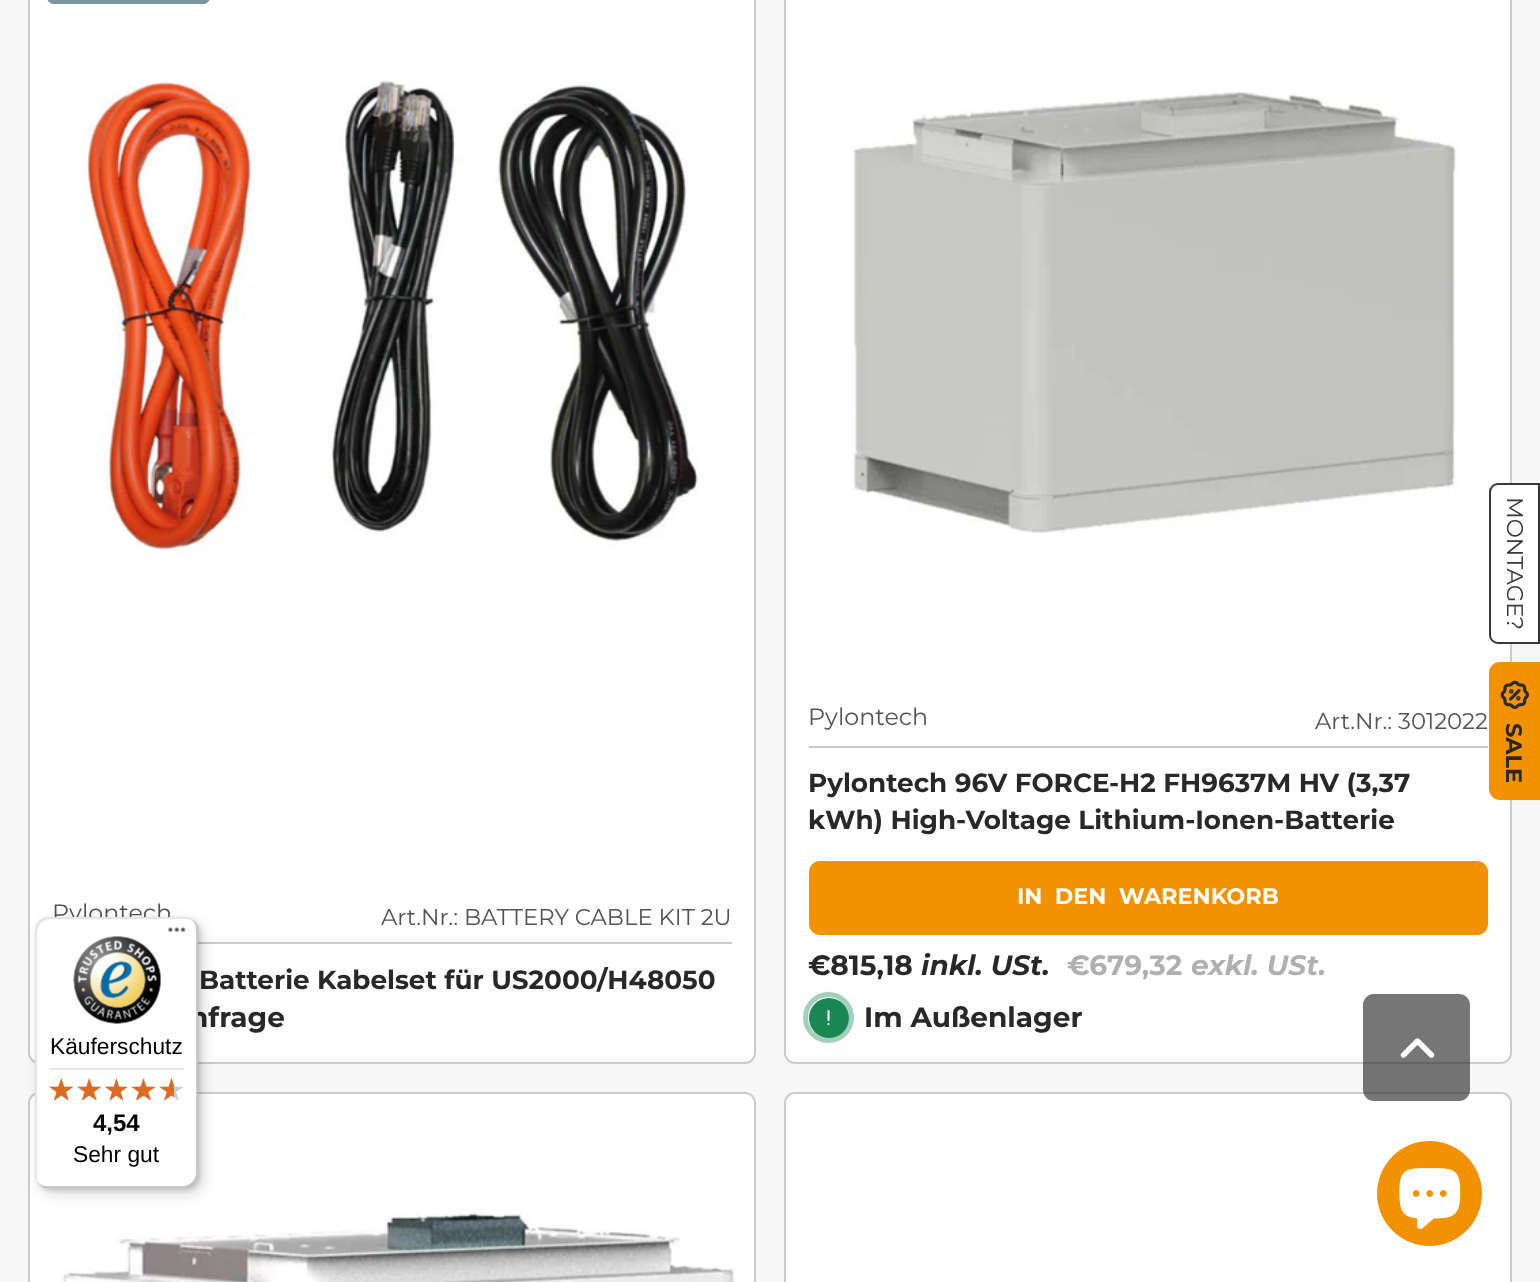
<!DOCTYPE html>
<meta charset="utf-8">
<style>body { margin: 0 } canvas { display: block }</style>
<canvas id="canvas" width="1540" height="1282"></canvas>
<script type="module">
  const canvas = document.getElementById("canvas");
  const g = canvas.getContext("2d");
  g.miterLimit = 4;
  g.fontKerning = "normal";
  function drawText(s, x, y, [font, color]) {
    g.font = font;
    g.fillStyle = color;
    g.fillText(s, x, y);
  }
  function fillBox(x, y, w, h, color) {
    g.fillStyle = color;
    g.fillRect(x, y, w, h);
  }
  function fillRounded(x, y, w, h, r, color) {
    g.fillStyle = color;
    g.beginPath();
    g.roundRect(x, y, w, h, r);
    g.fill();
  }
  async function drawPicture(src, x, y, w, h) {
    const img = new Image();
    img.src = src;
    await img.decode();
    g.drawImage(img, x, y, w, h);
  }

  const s1 = ["23.75px Montserrat", "#535353"];
  const s2 = ["22.75px Montserrat", "#535353"];
  const s3 = ["bold 26.25px Montserrat", "#282828"];
  const s4 = ["bold 28px Montserrat", "#282828"];
  const s5 = ["bold 22.4px Montserrat", "#FFFFFF"];
  const s6 = ["italic bold 28px Montserrat", "#282828"];
  const s7 = ["bold 28px Montserrat", "#B0B0B0"];
  const s8 = ["italic bold 28px Montserrat", "#B0B0B0"];
  const s9 = ["22.75px Liberation Sans", "#000000"];
  const s10 = ["bold 24px Liberation Sans", "#000000"];

  fillBox(0, 0, 1540, 1282, "#F7F7F7");
  g.fillStyle = "#FFFFFF";
  g.beginPath();
  g.roundRect(785, -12, 726, 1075, 10);
  g.fill();
  g.strokeStyle = "#CCCCCC";
  g.lineWidth = 2;
  g.stroke();
  g.beginPath();
  g.roundRect(1490, 484, 49, 159, [8, 0, 0, 8]);
  g.fill();
  g.strokeStyle = "#383838";
  g.stroke();
  g.font = "22.75px Montserrat";
  g.fillStyle = "#383838";
  g.save();
  g.translate(1507, 497);
  g.rotate(90 * Math.PI / 180);
  g.fillText("MONTAGE?", 0, 0);
  g.restore();
  g.fillStyle = "#F39200";
  g.beginPath();
  g.roundRect(1489, 662, 51, 138, [11, 0, 0, 11]);
  g.fill();
  await drawPicture("pic1.png", 1500, 680, 29, 29);
  g.font = "bold 22.4px Montserrat";
  g.fillStyle = "#282828";
  g.save();
  g.translate(1506, 723);
  g.rotate(90 * Math.PI / 180);
  g.fillText("SALE", 0, 0);
  g.restore();
  g.fillStyle = "#FFFFFF";
  g.beginPath();
  g.roundRect(29, -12, 726, 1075, 10);
  g.fill();
  g.strokeStyle = "#CCCCCC";
  g.stroke();
  fillRounded(47, -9, 163, 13, 9, "#7D959F");
  await drawPicture("pic2.png", 84, 79, 614, 472);
  fillBox(198, 942, 534, 2, "#CCCCCC");
  drawText("Pylontech", 52, 921, s1);
  drawText("Art.Nr.: BATTERY CABLE KIT 2U", 381, 925, s2);
  drawText("Batterie Kabelset für US2000/H48050", 199, 989, s3);
  drawText("nfrage", 189, 1027, s4);
  await drawPicture("pic3.png", 851, 91, 608, 442);
  fillBox(809, 746, 679, 2, "#CCCCCC");
  drawText("Pylontech", 808, 725, s1);
  drawText("Art.Nr.: 3012022", 1315, 729, s2);
  drawText("Pylontech 96V FORCE-H2 FH9637M HV (3,37", 808, 792, s3);
  drawText("kWh) High-Voltage Lithium-Ionen-Batterie", 808, 829, s3);
  fillRounded(809, 861, 679, 74, 11, "#F39200");
  g.wordSpacing = "6px";
  drawText("IN DEN WARENKORB", 1017, 904, s5);
  g.wordSpacing = "0px";
  drawText("€815,18", 808, 975, s4);
  drawText("inkl. USt.", 921, 975, s6);
  drawText("€679,32", 1067, 975, s7);
  drawText("exkl. USt.", 1191, 975, s8);
  g.beginPath();
  g.arc(828.5, 1017.5, 23, 0, Math.PI * 2);
  g.strokeStyle = "#A3CFBB";
  g.lineWidth = 5;
  g.stroke();
  g.fillStyle = "#198754";
  g.beginPath();
  g.arc(829, 1018, 20, 0, Math.PI * 2);
  g.fill();
  g.beginPath();
  g.moveTo(828.5, 1024);
  g.lineTo(828.5, 1024);
  g.moveTo(828.5, 1020);
  g.lineTo(828.5, 1011);
  g.strokeStyle = "#FFFFFF";
  g.lineWidth = 2.1;
  g.lineCap = "round";
  g.lineJoin = "round";
  g.stroke();
  drawText("Im Außenlager", 864, 1027, s4);
  g.fillStyle = "#FFFFFF";
  g.beginPath();
  g.roundRect(29, 1093, 726, 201, 10);
  g.fill();
  g.strokeStyle = "#CCCCCC";
  g.lineWidth = 2;
  g.lineJoin = "miter";
  g.stroke();
  await drawPicture("pic4.png", 30, 1094, 724, 188);
  g.beginPath();
  g.roundRect(785, 1093, 726, 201, 10);
  g.fill();
  g.stroke();
  fillRounded(786, 1094, 724, 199, 11, "#FFFFFF");
  await drawPicture("pic5.png", 786, 1094, 724, 7);
  g.fillStyle = "rgba(0, 0, 0, 0.15)";
  g.filter = "blur(7px)";
  g.beginPath();
  g.roundRect(40, 922, 163, 272, 14);
  g.fill();
  g.filter = "none";
  g.filter = "blur(2px)";
  g.beginPath();
  g.roundRect(37, 919, 163, 271, 14);
  g.fill();
  g.filter = "none";
  fillRounded(35, 917, 163, 271, 14, "#FFFFFF");
  g.fillStyle = "rgba(0, 0, 0, 0.1)";
  g.beginPath();
  g.moveTo(51, 919);
  g.lineTo(186, 919);
  g.bezierCurveTo(189, 919, 193, 920, 195, 923);
  g.bezierCurveTo(193, 919, 189, 917, 184, 917);
  g.lineTo(49, 917);
  g.bezierCurveTo(41, 917, 35, 923, 35, 931);
  g.lineTo(35, 1174);
  g.bezierCurveTo(35, 1178, 37, 1182, 40, 1184);
  g.bezierCurveTo(38, 1182, 37, 1179, 37, 1176);
  g.lineTo(37, 933);
  g.bezierCurveTo(37, 925, 43, 919, 51, 919);
  g.closePath();
  g.fill();
  g.fillStyle = "rgba(0, 0, 0, 0.2)";
  g.beginPath();
  g.moveTo(38, 1182);
  g.bezierCurveTo(40, 1186, 44, 1188, 49, 1188);
  g.lineTo(184, 1188);
  g.bezierCurveTo(192, 1188, 198, 1182, 198, 1174);
  g.lineTo(198, 931);
  g.bezierCurveTo(198, 926, 196, 922, 192, 920);
  g.bezierCurveTo(195, 922, 196, 926, 196, 929);
  g.lineTo(196, 1172);
  g.bezierCurveTo(196, 1180, 190, 1186, 182, 1186);
  g.lineTo(47, 1186);
  g.bezierCurveTo(44, 1186, 40, 1185, 38, 1182);
  g.closePath();
  g.fill();
  g.fillStyle = "rgba(50, 50, 50, 0.2)";
  g.beginPath();
  g.moveTo(40, 1184);
  g.bezierCurveTo(42, 1187, 45, 1188, 49, 1188);
  g.lineTo(184, 1188);
  g.bezierCurveTo(192, 1188, 198, 1182, 198, 1174);
  g.lineTo(198, 931);
  g.bezierCurveTo(198, 926, 196, 922, 192, 920);
  g.bezierCurveTo(195, 922, 197, 926, 197, 930);
  g.lineTo(197, 1173);
  g.bezierCurveTo(197, 1181, 190, 1187, 183, 1187);
  g.lineTo(48, 1187);
  g.bezierCurveTo(45, 1187, 42, 1186, 40, 1184);
  g.closePath();
  g.fill();
  g.fillStyle = "rgba(255, 255, 255, 0.3)";
  g.beginPath();
  g.moveTo(40, 1184);
  g.bezierCurveTo(42, 1187, 45, 1188, 49, 1188);
  g.lineTo(184, 1188);
  g.bezierCurveTo(192, 1188, 198, 1182, 198, 1174);
  g.lineTo(198, 931);
  g.bezierCurveTo(198, 927, 197, 924, 194, 922);
  g.bezierCurveTo(196, 924, 197, 927, 197, 930);
  g.lineTo(197, 1173);
  g.bezierCurveTo(197, 1181, 191, 1187, 183, 1187);
  g.lineTo(48, 1187);
  g.bezierCurveTo(45, 1187, 42, 1186, 40, 1184);
  g.closePath();
  g.fill();
  await drawPicture("pic6.png", 168, 927, 18, 5);
  await drawPicture("pic7.png", 73, 936, 88, 88);
  drawText("Käuferschutz", 50, 1054, s9);
  fillBox(49, 1068, 135, 2, "#E5E5E5");
  await drawPicture("pic8.png", 49, 1078, 24, 23);
  await drawPicture("pic9.png", 77, 1078, 24, 23);
  await drawPicture("pic10.png", 105, 1078, 23, 23);
  await drawPicture("pic11.png", 131, 1078, 25, 23);
  await drawPicture("pic12.png", 160, 1078, 23, 23);
  await drawPicture("pic13.png", 49, 1078, 24, 23);
  await drawPicture("pic14.png", 77, 1078, 25, 23);
  await drawPicture("pic15.png", 105, 1078, 23, 23);
  await drawPicture("pic16.png", 131, 1078, 25, 23);
  await drawPicture("pic17.png", 159, 1078, 15, 23);
  drawText("4,54", 93, 1131, s10);
  drawText("Sehr gut", 73, 1162, s9);
  fillRounded(1363, 994, 107, 107, 11, "rgba(40, 40, 40, 0.64)");
  g.beginPath();
  g.moveTo(1431.5, 1055);
  g.lineTo(1417.5, 1041);
  g.lineTo(1403.5, 1055);
  g.strokeStyle = "#FFFFFF";
  g.lineWidth = 5.4;
  g.lineJoin = "round";
  g.stroke();
  g.fillStyle = "#F39200";
  g.beginPath();
  g.arc(1429.5, 1193.5, 52.5, 0, Math.PI * 2);
  g.fill();
  await drawPicture("pic18.png", 1399, 1168, 62, 61);
</script>
